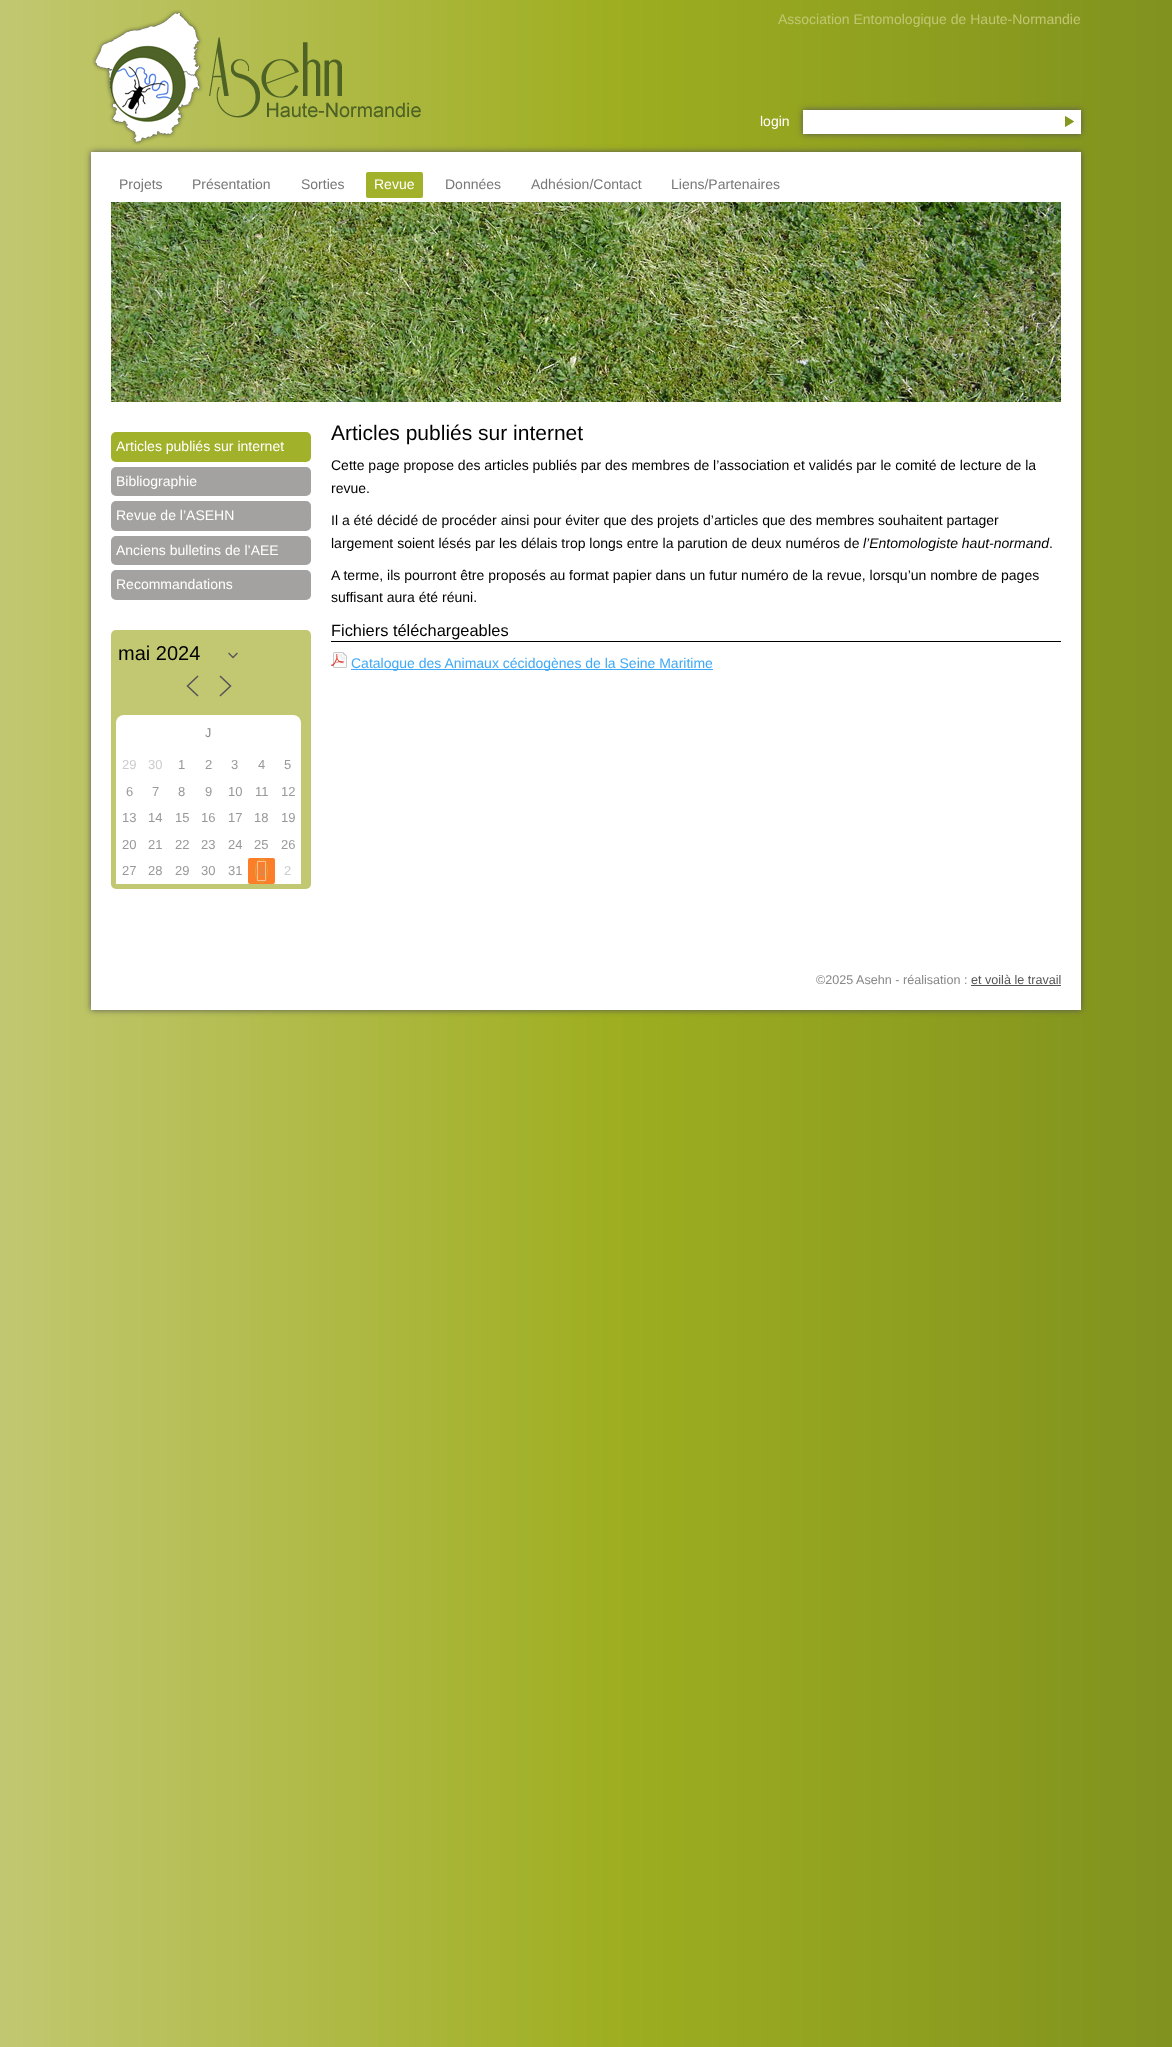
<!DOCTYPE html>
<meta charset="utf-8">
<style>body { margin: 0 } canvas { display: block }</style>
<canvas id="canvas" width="1172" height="2047"></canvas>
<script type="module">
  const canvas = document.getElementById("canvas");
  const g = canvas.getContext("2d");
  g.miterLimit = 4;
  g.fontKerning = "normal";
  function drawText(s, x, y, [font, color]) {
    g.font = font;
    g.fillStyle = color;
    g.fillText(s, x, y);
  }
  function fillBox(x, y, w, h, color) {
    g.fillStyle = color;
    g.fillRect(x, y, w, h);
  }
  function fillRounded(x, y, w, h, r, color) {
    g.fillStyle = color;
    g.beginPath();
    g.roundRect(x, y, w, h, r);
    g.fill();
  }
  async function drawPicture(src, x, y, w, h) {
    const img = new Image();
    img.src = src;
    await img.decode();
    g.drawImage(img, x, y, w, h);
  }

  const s1 = ["14px Liberation Sans", "#C2C872"];
  const s2 = ["14px Liberation Sans", "#FFFFFF"];
  const s3 = ["14px Liberation Sans", "#777777"];
  const s4 = ["20px Liberation Sans", "#000000"];
  const s5 = ["12.6px Liberation Sans", "#888888"];
  const s6 = ["13px Liberation Sans", "#CCCCCC"];
  const s7 = ["13px Liberation Sans", "#999999"];
  const s8 = ["13px Liberation Sans", "#CB8C61"];
  const s9 = ["21px Liberation Sans", "#000000"];
  const s10 = ["14px Liberation Sans", "#000000"];
  const s11 = ["italic 14px Liberation Sans", "#000000"];
  const s12 = ["16.4px Liberation Sans", "#000000"];
  const s13 = ["14px Liberation Sans", "#3FA9F5"];
  const s14 = ["12.6px Liberation Sans", "#555555"];

  fillBox(0, 0, 1172, 2047, "#FFFFFF");
  await drawPicture("pic1.png", 0, 0, 1172, 2047);
  g.fillStyle = "#555555";
  g.filter = "blur(3px)";
  g.beginPath();
  g.rect(91, 152, 990, 858);
  g.fill();
  g.filter = "none";
  await drawPicture("pic2.png", 92, 10, 329, 135);
  drawText("Association Entomologique de Haute-Normandie", 778, 24, s1);
  drawText("login", 760, 126, s2);
  g.fillStyle = "#555555";
  g.filter = "blur(3px)";
  g.beginPath();
  g.rect(803, 110, 278, 24);
  g.fill();
  g.filter = "none";
  fillBox(803, 110, 278, 24, "#FFFFFF");
  await drawPicture("pic3.png", 1065, 116, 9, 11);
  fillBox(91, 152, 990, 858, "#FFFFFF");
  drawText("Projets", 119, 189, s3);
  drawText("Présentation", 192, 189, s3);
  drawText("Sorties", 301, 189, s3);
  fillRounded(366, 172, 57, 26, 2, "#A2B12A");
  drawText("Revue", 374, 189, s2);
  drawText("Données", 445, 189, s3);
  drawText("Adhésion/Contact", 531, 189, s3);
  drawText("Liens/Partenaires", 671, 189, s3);
  await drawPicture("pic4.png", 111, 202, 950, 200);
  fillRounded(111, 432, 200, 30, 5, "#A2B12A");
  drawText("Articles publiés sur internet", 116, 451, s2);
  fillRounded(111, 467, 200, 29, 5, "#A3A2A0");
  drawText("Bibliographie", 116, 486, s2);
  fillRounded(111, 501, 200, 30, 5, "#A3A2A0");
  drawText("Revue de l’ASEHN", 116, 520, s2);
  fillRounded(111, 536, 200, 29, 5, "#A3A2A0");
  drawText("Anciens bulletins de l’AEE", 116, 555, s2);
  fillRounded(111, 570, 200, 30, 5, "#A3A2A0");
  drawText("Recommandations", 116, 589, s2);
  fillRounded(111, 630, 200, 259, 5, "#C2C872");
  g.beginPath();
  g.moveTo(229, 653.5);
  g.lineTo(233, 657.5);
  g.lineTo(237, 653.5);
  g.strokeStyle = "#555555";
  g.lineWidth = 1.3;
  g.lineCap = "square";
  g.stroke();
  drawText("mai 2024", 118, 660, s4);
  g.beginPath();
  g.moveTo(197.5, 695.5);
  g.lineTo(187.5, 686);
  g.lineTo(197.5, 676.5);
  g.moveTo(220.5, 695.5);
  g.lineTo(230.5, 686);
  g.lineTo(220.5, 676.5);
  g.lineWidth = 1.5;
  g.stroke();
  g.fillStyle = "#FFFFFF";
  g.beginPath();
  g.roundRect(116, 715, 185, 37, [8, 8, 0, 0]);
  g.fill();
  drawText("J", 205, 737, s5);
  fillBox(116, 752, 185, 132, "#FFFFFF");
  drawText("29", 122, 769, s6);
  drawText("30", 148, 769, s6);
  drawText("1", 178, 769, s7);
  drawText("2", 205, 769, s7);
  drawText("3", 231, 769, s7);
  drawText("4", 258, 769, s7);
  drawText("5", 284, 769, s7);
  drawText("6", 126, 796, s7);
  drawText("7", 152, 796, s7);
  drawText("8", 178, 796, s7);
  drawText("9", 205, 796, s7);
  drawText("10", 228, 796, s7);
  drawText("11", 255, 796, s7);
  drawText("12", 281, 796, s7);
  drawText("13", 122, 822, s7);
  drawText("14", 148, 822, s7);
  drawText("15", 175, 822, s7);
  drawText("16", 201, 822, s7);
  drawText("17", 228, 822, s7);
  drawText("18", 254, 822, s7);
  drawText("19", 281, 822, s7);
  drawText("20", 122, 849, s7);
  drawText("21", 148, 849, s7);
  drawText("22", 175, 849, s7);
  drawText("23", 201, 849, s7);
  drawText("24", 228, 849, s7);
  drawText("25", 254, 849, s7);
  drawText("26", 281, 849, s7);
  drawText("27", 122, 875, s7);
  drawText("28", 148, 875, s7);
  drawText("29", 175, 875, s7);
  drawText("30", 201, 875, s7);
  drawText("31", 228, 875, s7);
  fillRounded(248, 858, 27, 26, 2, "#FD7E29");
  g.beginPath();
  g.moveTo(261.5, 859.5);
  g.bezierCurveTo(269.5, 859.5, 269.5, 882.5, 261.5, 882.5);
  g.bezierCurveTo(253.5, 882.5, 253.5, 859.5, 261.5, 859.5);
  g.closePath();
  g.strokeStyle = "#D3A837";
  g.lineWidth = 1;
  g.lineCap = "butt";
  g.stroke();
  g.strokeStyle = "#FEBE94";
  g.strokeRect(257.5, 861.5, 8, 19);
  drawText("1", 258, 875, s8);
  drawText("2", 284, 875, s6);
  drawText("Articles publiés sur internet", 331, 440, s9);
  drawText("Cette page propose des articles publiés par des membres de l’association et validés par le comité de lecture de la", 331, 470, s10);
  drawText("revue.", 331, 493, s10);
  drawText("Il a été décidé de procéder ainsi pour éviter que des projets d’articles que des membres souhaitent partager", 331, 525, s10);
  drawText("largement soient lésés par les délais trop longs entre la parution de deux numéros de", 331, 548, s10);
  drawText("l’Entomologiste haut-normand", 863, 548, s11);
  drawText(".", 1049, 548, s10);
  drawText("A terme, ils pourront être proposés au format papier dans un futur numéro de la revue, lorsqu’un nombre de pages", 331, 580, s10);
  drawText("suffisant aura été réuni.", 331, 602, s10);
  fillBox(331, 641, 730, 1, "#000000");
  drawText("Fichiers téléchargeables", 331, 636, s12);
  await drawPicture("pic5.png", 331, 652, 16, 16);
  fillBox(351, 669, 362, 1, "#3FA9F5");
  drawText("Catalogue des Animaux cécidogènes de la Seine Maritime", 351, 668, s13);
  drawText("©2025 Asehn - réalisation :", 816, 984, s5);
  drawText("et voilà le travail", 971, 984, s14);
  fillBox(971, 985, 90, 1, "#555555");
</script>
